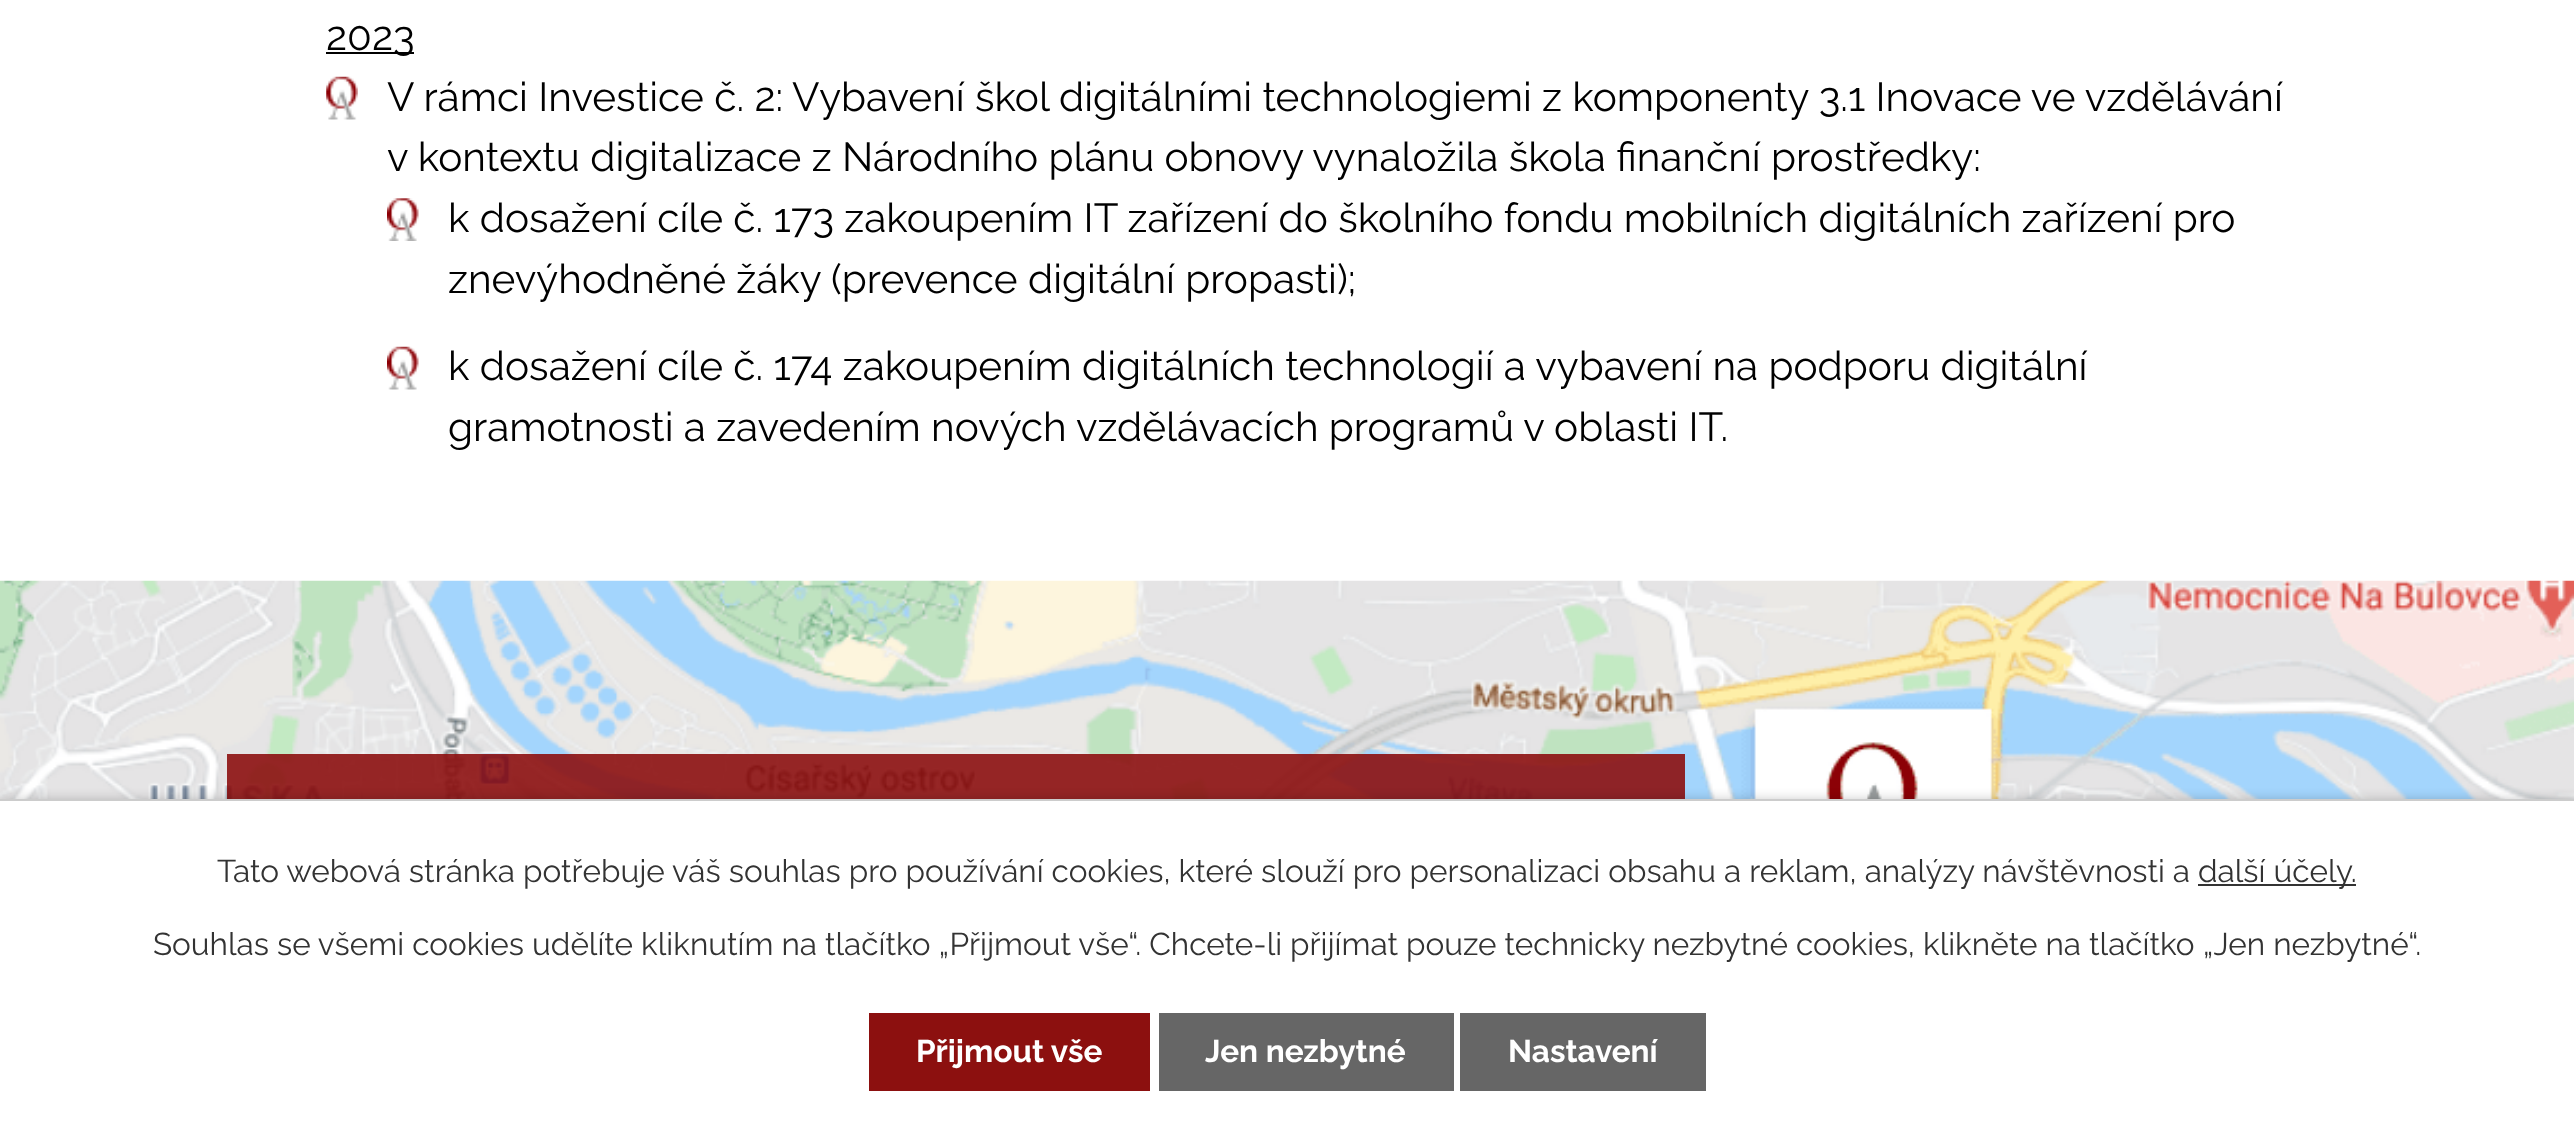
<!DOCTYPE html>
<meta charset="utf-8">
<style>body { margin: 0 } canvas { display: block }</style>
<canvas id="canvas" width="2574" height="1132"></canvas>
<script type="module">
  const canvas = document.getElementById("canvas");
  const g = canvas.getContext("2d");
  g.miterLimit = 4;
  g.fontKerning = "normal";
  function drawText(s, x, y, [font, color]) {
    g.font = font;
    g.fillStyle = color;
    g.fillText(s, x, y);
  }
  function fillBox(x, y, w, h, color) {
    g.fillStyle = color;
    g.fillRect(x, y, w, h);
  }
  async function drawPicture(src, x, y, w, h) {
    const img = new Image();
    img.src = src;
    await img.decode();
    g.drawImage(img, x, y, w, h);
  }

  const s1 = ["40.5px Raleway", "#000000"];
  const s2 = ["31.5px Raleway", "#333333"];
  const s3 = ["bold 31.5px Raleway", "#FFFFFF"];

  fillBox(0, 0, 2574, 1132, "#FFFFFF");
  fillBox(326, 52, 88, 2, "#000000");
  drawText("2023", 326, 50, s1);
  await drawPicture("pic1.png", 326, 76, 32, 44);
  drawText("V rámci Investice č. 2: Vybavení škol digitálními technologiemi z komponenty 3.1 Inovace ve vzdělávání", 387, 111, s1);
  drawText("v kontextu digitalizace z Národního plánu obnovy vynaložila škola finanční prostředky:", 387, 171, s1);
  await drawPicture("pic2.png", 387, 198, 32, 43);
  drawText("k dosažení cíle č. 173 zakoupením IT zařízení do školního fondu mobilních digitálních zařízení pro", 448, 232, s1);
  drawText("znevýhodněné žáky (prevence digitální propasti);", 448, 293, s1);
  await drawPicture("pic3.png", 387, 346, 32, 44);
  drawText("k dosažení cíle č. 174 zakoupením digitálních technologií a vybavení na podporu digitální", 448, 380, s1);
  drawText("gramotnosti a zavedením nových vzdělávacích programů v oblasti IT.", 448, 441, s1);
  await drawPicture("pic4.png", 0, 580, 2574, 219);
  fillBox(227, 754, 1458, 45, "rgba(140, 16, 15, 0.9)");
  g.fillStyle = "rgba(0, 0, 0, 0.2)";
  g.filter = "blur(5.5px)";
  g.beginPath();
  g.rect(0, 799, 2574, 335);
  g.fill();
  g.filter = "none";
  fillBox(0, 801, 2574, 331, "#FFFFFF");
  fillBox(0, 799, 2574, 2, "#CCCCCC");
  drawText("Tato webová stránka potřebuje váš souhlas pro používání cookies, které slouží pro personalizaci obsahu a reklam, analýzy návštěvnosti a", 217, 882, s2);
  fillBox(2198, 884, 158, 2, "#333333");
  drawText("další účely.", 2198, 882, s2);
  drawText("Souhlas se všemi cookies udělíte kliknutím na tlačítko „Přijmout vše“. Chcete-li přijímat pouze technicky nezbytné cookies, klikněte na tlačítko „Jen nezbytné“.", 153, 955, s2);
  fillBox(869, 1013, 281, 78, "#8C100F");
  drawText("Přijmout vše", 916, 1062, s3);
  fillBox(1159, 1013, 295, 78, "#666666");
  drawText("Jen nezbytné", 1205, 1062, s3);
  fillBox(1460, 1013, 246, 78, "#666666");
  drawText("Nastavení", 1508, 1062, s3);
</script>
